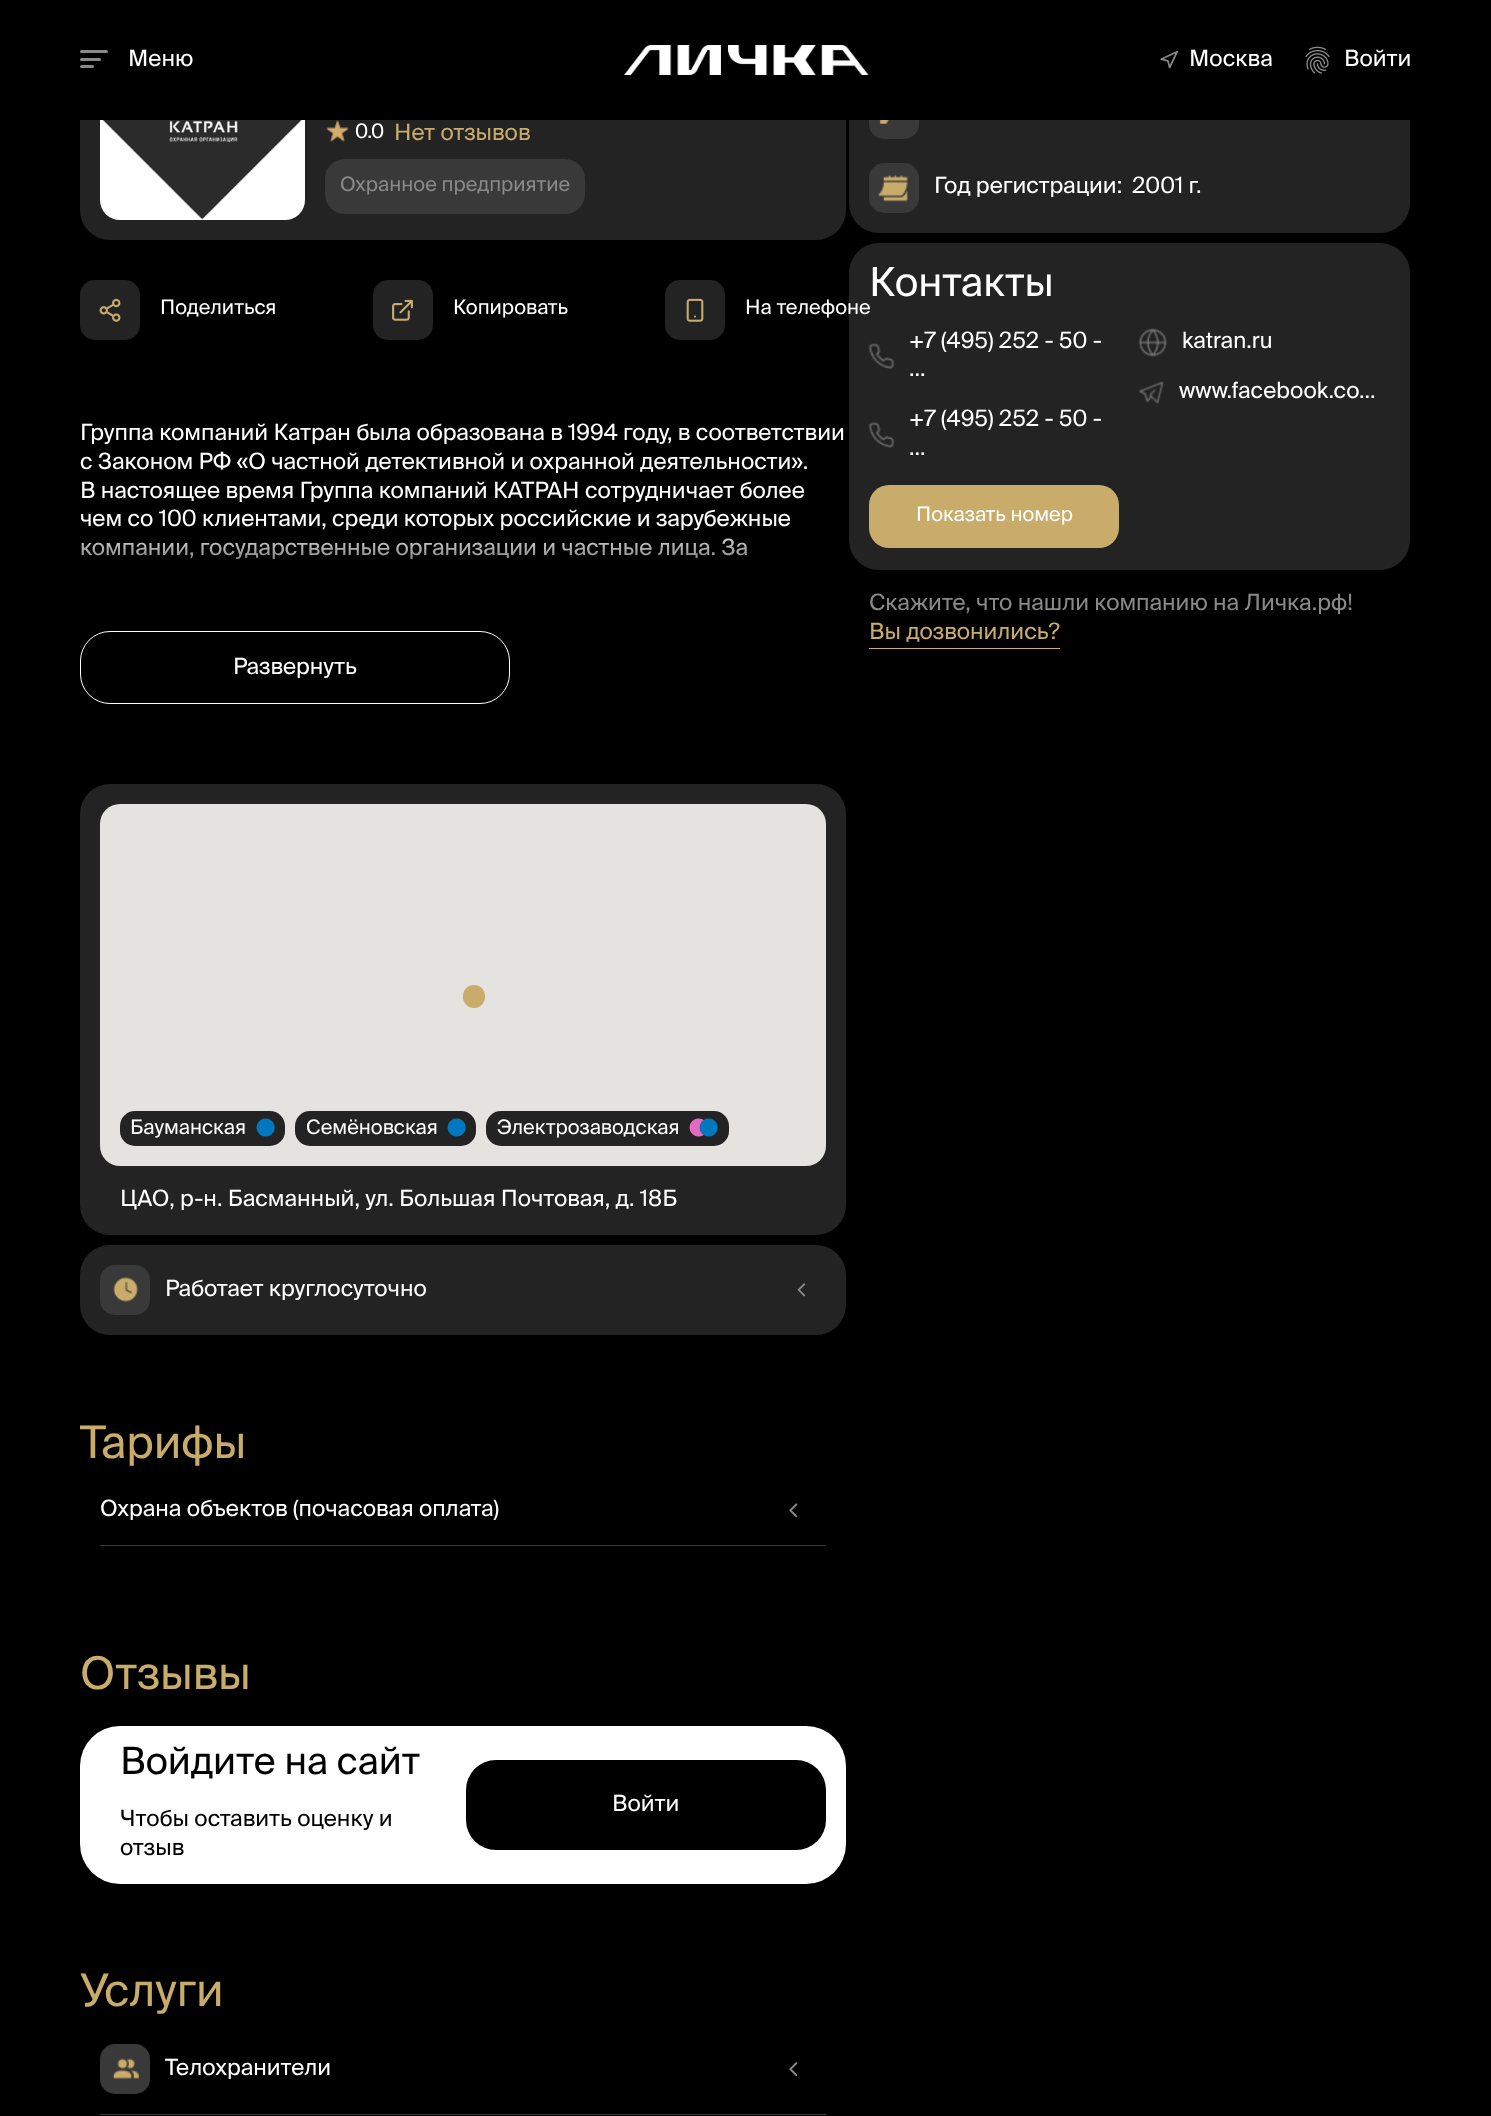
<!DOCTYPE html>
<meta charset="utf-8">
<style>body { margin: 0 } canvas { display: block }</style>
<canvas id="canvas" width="1491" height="2116"></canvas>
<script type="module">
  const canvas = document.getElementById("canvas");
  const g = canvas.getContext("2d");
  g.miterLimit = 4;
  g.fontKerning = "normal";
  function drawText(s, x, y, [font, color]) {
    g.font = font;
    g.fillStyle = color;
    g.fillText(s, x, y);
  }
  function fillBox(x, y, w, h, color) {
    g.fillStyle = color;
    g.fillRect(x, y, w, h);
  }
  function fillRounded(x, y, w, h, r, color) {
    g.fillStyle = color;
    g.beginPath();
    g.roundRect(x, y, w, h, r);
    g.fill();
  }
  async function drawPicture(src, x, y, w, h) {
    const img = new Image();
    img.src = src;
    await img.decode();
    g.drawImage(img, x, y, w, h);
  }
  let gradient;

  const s1 = ["22.5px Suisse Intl", "#FFFFFF"];
  const s2 = ["20px Suisse Intl", "#FFFFFF"];
  const s3 = ["22.5px Suisse Intl", "#C9AB6A"];
  const s4 = ["20px Suisse Intl", "#898989"];
  const s5 = ["32px Suisse Intl", "#0078BF"];
  const s6 = ["32px Suisse Intl", "#E66AC0"];
  const s7 = ["45px Suisse Intl", "#C9AB6A"];
  const s8 = ["37.5px Suisse Intl", "#000000"];
  const s9 = ["22.5px Suisse Intl", "#000000"];
  const s10 = ["40px Suisse Intl", "#FFFFFF"];
  const s11 = ["22.5px Suisse Intl", "#898989"];

  fillBox(0, 0, 1491, 2116, "#000000");
  fillRounded(80, -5, 766, 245, 30, "#232323");
  fillRounded(100, 15, 205, 205, 20, "#FFFFFF");
  fillRounded(849, -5, 561, 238, 30, "#232323");
  fillRounded(869, 89, 50, 50, 15, "#393939");
  fillBox(80, 0, 1330, 120, "#000000");
  fillRounded(80, 65, 14, 3, 1.5, "#898989");
  fillRounded(80, 50, 28, 3, 1.5, "#898989");
  fillRounded(80, 58, 21, 3, 1.5, "#898989");
  drawText("Меню", 128, 66, s1);
  await drawPicture("pic1.png", 624, 45, 245, 30);
  await drawPicture("pic2.png", 1160, 50, 18, 19);
  drawText("Москва", 1189, 66, s1);
  await drawPicture("pic3.png", 1305, 46, 25, 28);
  drawText("Войти", 1344, 66, s1);
  await drawPicture("pic4.png", 102, 120, 200, 100);
  await drawPicture("pic5.png", 326, 120, 23, 22);
  drawText("0.0", 355, 138, s2);
  drawText("Нет отзывов", 394, 140, s3);
  fillRounded(325, 159, 260, 55, 20, "#393939");
  drawText("Охранное предприятие", 340, 191, s4);
  fillRounded(80, 280, 60, 60, 15, "#232323");
  await drawPicture("pic6.png", 99, 298, 22, 24);
  drawText("Поделиться", 160, 314, s2);
  fillRounded(373, 280, 60, 60, 15, "#232323");
  await drawPicture("pic7.png", 392, 299, 21, 22);
  drawText("Копировать", 453, 314, s2);
  fillRounded(665, 280, 60, 60, 15, "#232323");
  await drawPicture("pic8.png", 686, 298, 18, 24);
  fillRounded(849, 243, 561, 327, 30, "#232323");
  drawText("На телефоне", 745, 314, s2);
  drawText("Группа компаний Катран была образована в 1994 году, в соответствии", 80, 440, s1);
  drawText("с Законом РФ «О частной детективной и охранной деятельности».", 80, 469, s1);
  drawText("В настоящее время Группа компаний КАТРАН сотрудничает более", 80, 498, s1);
  drawText("чем со 100 клиентами, среди которых российские и зарубежные", 80, 526, s1);
  drawText("компании, государственные организации и частные лица. За", 80, 555, s1);
  gradient = g.createLinearGradient(463, 420, 463, 621);
  gradient.addColorStop(0.52, "rgba(0, 0, 0, 0)");
  gradient.addColorStop(0.89, "#000000");
  g.fillStyle = gradient;
  g.fillRect(81, 526, 666, 33);
  g.beginPath();
  g.roundRect(80.5, 631.5, 429, 72, 29.5);
  g.strokeStyle = "#FFFFFF";
  g.stroke();
  drawText("Развернуть", 233, 674, s1);
  fillRounded(80, 784, 766, 451, 30, "#232323");
  fillRounded(100, 804, 726, 362, 20, "#E5E3DF");
  fillRounded(463, 985, 22, 23, 11, "#C9AB6A");
  fillRounded(120, 1111, 165, 35, 15, "#232323");
  drawText("Бауманская", 130, 1134, s2);
  drawText("●", 256, 1136, s5);
  fillRounded(295, 1111, 181, 35, 15, "#232323");
  drawText("Семёновская", 306, 1134, s2);
  drawText("●", 447, 1136, s5);
  fillRounded(486, 1111, 243, 35, 15, "#232323");
  drawText("●", 689, 1136, s6);
  drawText("Электрозаводская", 497, 1134, s2);
  drawText("●", 699, 1136, s5);
  drawText("ЦАО, р-н. Басманный, ул. Большая Почтовая, д. 18Б", 120, 1206, s1);
  fillRounded(80, 1245, 766, 90, 30, "#232323");
  fillRounded(100, 1265, 50, 50, 15, "#393939");
  await drawPicture("pic9.png", 113, 1277, 25, 25);
  drawText("Работает круглосуточно", 165, 1296, s1);
  await drawPicture("pic10.png", 797, 1283, 9, 14);
  drawText("Тарифы", 80, 1458, s7);
  fillBox(100, 1545, 726, 1, "#393939");
  drawText("Охрана объектов (почасовая оплата)", 100, 1516, s1);
  await drawPicture("pic11.png", 789, 1503, 9, 15);
  drawText("Отзывы", 80, 1689, s7);
  fillRounded(80, 1726, 766, 158, 40, "#FFFFFF");
  drawText("Войдите на сайт", 120, 1774, s8);
  drawText("Чтобы оставить оценку и", 120, 1826, s9);
  drawText("отзыв", 120, 1855, s9);
  fillRounded(466, 1760, 360, 90, 30, "#000000");
  drawText("Войти", 612, 1811, s1);
  drawText("Услуги", 80, 2006, s7);
  fillBox(100, 2114, 726, 1, "#393939");
  fillRounded(100, 2044, 50, 50, 15, "#393939");
  await drawPicture("pic12.png", 113, 2058, 26, 21);
  drawText("Телохранители", 165, 2075, s1);
  await drawPicture("pic13.png", 789, 2062, 9, 14);
  await drawPicture("pic14.png", 879, 120, 10, 4);
  fillRounded(869, 163, 50, 50, 15, "#393939");
  await drawPicture("pic15.png", 878, 175, 30, 27);
  drawText("Год регистрации:", 934, 193, s1);
  drawText("2001 г.", 1132, 193, s1);
  drawText("Контакты", 869, 296, s10);
  await drawPicture("pic16.png", 868, 343, 27, 26);
  drawText("+7 (495) 252 - 50 -", 909, 348, s1);
  drawText("...", 909, 376, s1);
  drawText("+7 (495) 252 - 50 -", 909, 426, s1);
  await drawPicture("pic17.png", 868, 422, 27, 26);
  drawText("...", 909, 455, s1);
  fillRounded(869, 485, 250, 63, 20, "#C9AB6A");
  drawText("Показать номер", 916, 521, s2);
  await drawPicture("pic18.png", 1138, 328, 29, 29);
  drawText("katran.ru", 1182, 348, s1);
  await drawPicture("pic19.png", 1139, 381, 25, 23);
  drawText("www.facebook.co…", 1179, 398, s1);
  drawText("Скажите, что нашли компанию на Личка.рф!", 869, 610, s11);
  drawText("Вы дозвонились?", 869, 639, s3);
  fillBox(869, 648, 191, 1, "#C9AB6A");
</script>
